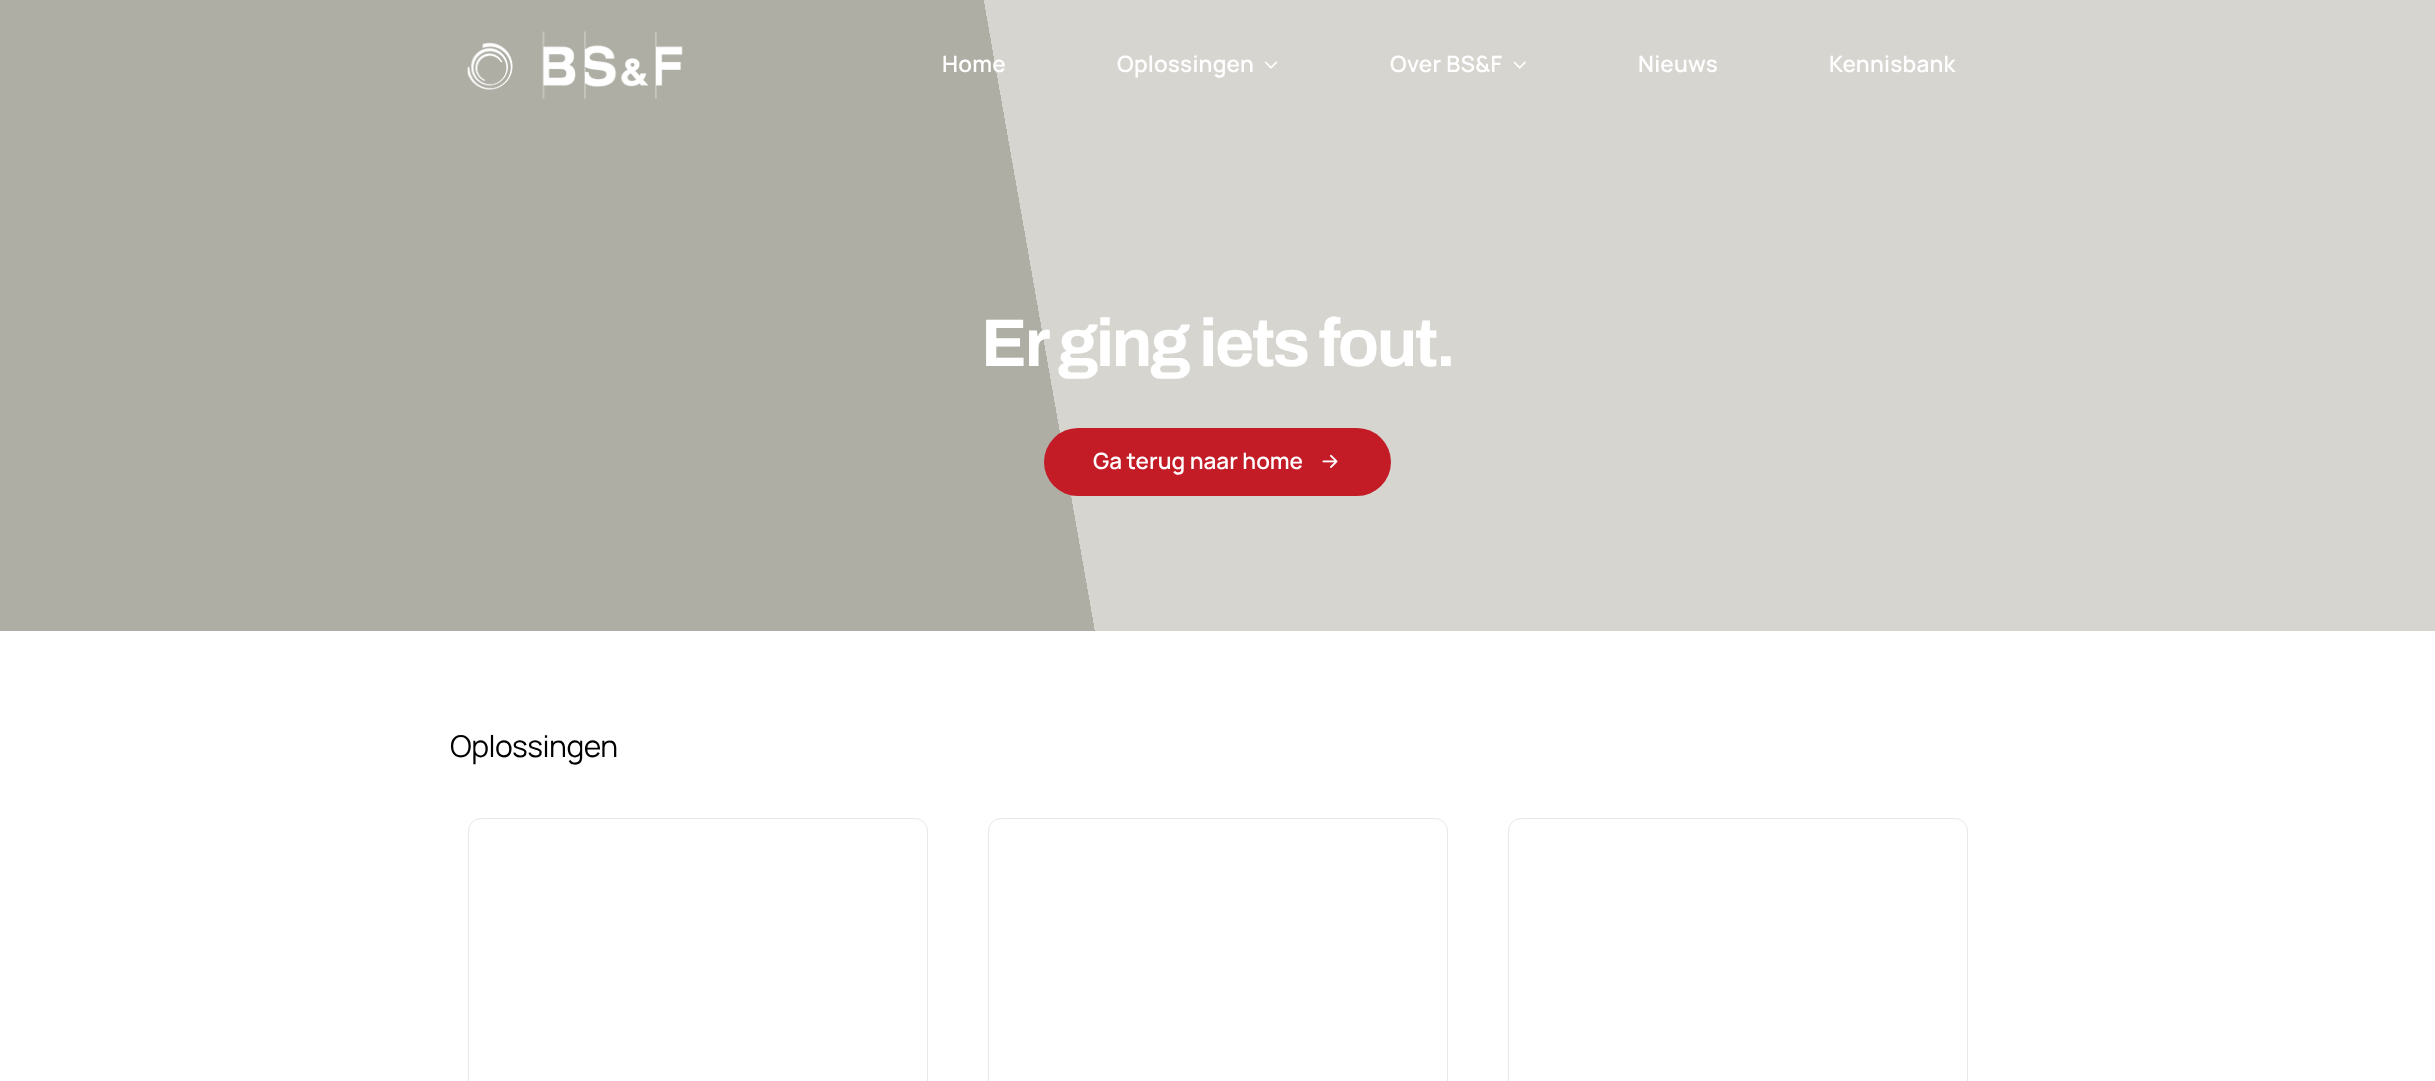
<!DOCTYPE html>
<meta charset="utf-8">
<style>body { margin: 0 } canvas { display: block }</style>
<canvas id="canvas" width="2435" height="1081"></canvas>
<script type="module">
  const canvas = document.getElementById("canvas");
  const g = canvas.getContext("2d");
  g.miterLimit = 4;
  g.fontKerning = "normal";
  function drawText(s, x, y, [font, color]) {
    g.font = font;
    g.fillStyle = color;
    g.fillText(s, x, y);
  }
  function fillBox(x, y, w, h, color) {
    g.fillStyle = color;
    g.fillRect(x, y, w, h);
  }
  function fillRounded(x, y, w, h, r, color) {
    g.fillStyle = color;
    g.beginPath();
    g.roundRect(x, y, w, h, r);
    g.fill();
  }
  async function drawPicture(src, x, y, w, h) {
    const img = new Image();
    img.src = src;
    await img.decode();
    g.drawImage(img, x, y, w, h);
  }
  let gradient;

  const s1 = ["600 22.5px Manrope", "#FFFFFF"];
  const s2 = ["600 67.5px Archivo", "#FFFFFF"];
  const s3 = ["30px Manrope", "#000000"];

  fillBox(0, 0, 2435, 1081, "#FFFFFF");
  gradient = g.createLinearGradient(-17, 533, 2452, 98);
  gradient.addColorStop(0.43, "#AEAEA5");
  gradient.addColorStop(0.43, "#D7D5D0");
  g.fillStyle = gradient;
  g.fillRect(0, 0, 2435, 631);
  await drawPicture("pic1.png", 467, 31, 216, 68);
  g.letterSpacing = "0.25px";
  drawText("Home", 942, 72, s1);
  drawText("Oplossingen", 1117, 72, s1);
  await drawPicture("pic2.png", 1264, 61, 14, 8);
  drawText("Over BS&F", 1390, 72, s1);
  await drawPicture("pic3.png", 1513, 61, 13, 8);
  drawText("Nieuws", 1638, 72, s1);
  drawText("Kennisbank", 1829, 72, s1);
  g.letterSpacing = "-2.4px";
  drawText("Er ging iets fout.", 981, 366, s2);
  fillRounded(1044, 428, 347, 68, 34, "#C31C27");
  g.letterSpacing = "0px";
  drawText("Ga terug naar home", 1093, 469, s1);
  await drawPicture("pic4.png", 1322, 454, 16, 14);
  g.letterSpacing = "-0.5px";
  drawText("Oplossingen", 450, 757, s3);
  g.beginPath();
  g.roundRect(468.5, 818.5, 459, 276, 12.5);
  g.strokeStyle = "#E8E8E8";
  g.stroke();
  g.beginPath();
  g.roundRect(988.5, 818.5, 459, 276, 12.5);
  g.stroke();
  g.beginPath();
  g.roundRect(1508.5, 818.5, 459, 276, 12.5);
  g.stroke();
</script>
